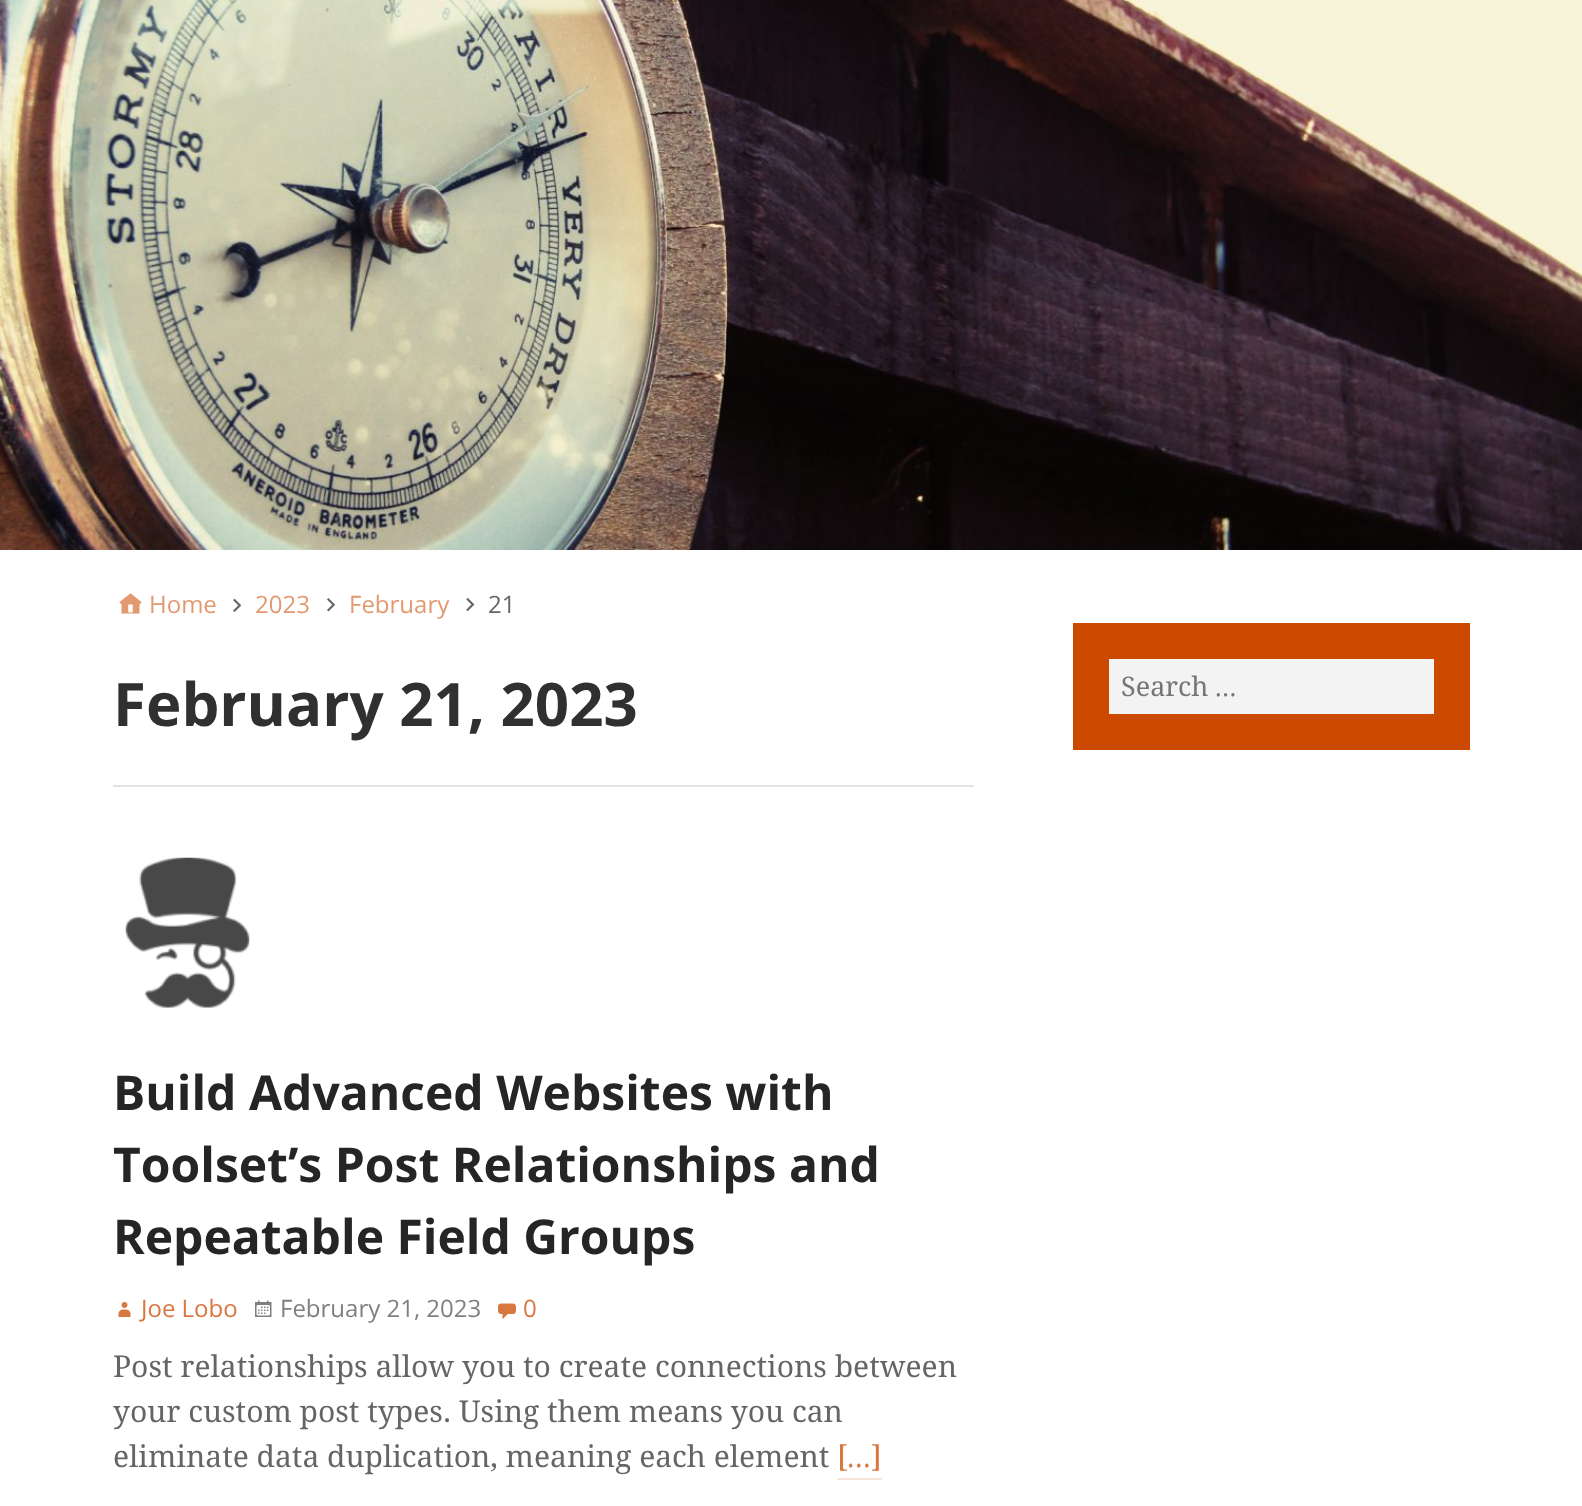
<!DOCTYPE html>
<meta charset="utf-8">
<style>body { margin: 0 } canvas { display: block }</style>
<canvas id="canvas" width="1582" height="1506"></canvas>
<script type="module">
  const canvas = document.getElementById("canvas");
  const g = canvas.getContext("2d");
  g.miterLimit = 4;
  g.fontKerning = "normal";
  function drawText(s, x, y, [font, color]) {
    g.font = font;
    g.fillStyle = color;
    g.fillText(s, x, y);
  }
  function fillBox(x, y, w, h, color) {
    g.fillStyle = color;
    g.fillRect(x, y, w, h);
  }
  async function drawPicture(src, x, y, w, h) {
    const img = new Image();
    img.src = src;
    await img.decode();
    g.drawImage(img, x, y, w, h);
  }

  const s1 = ["24px Open Sans", "#E39970"];
  const s2 = ["24px Open Sans", "#656565"];
  const s3 = ["bold 60px Open Sans", "#303030"];
  const s4 = ["bold 48px Open Sans", "#252525"];
  const s5 = ["24px Open Sans", "#D97740"];
  const s6 = ["24px Open Sans", "#808080"];
  const s7 = ["30px Droid Serif", "#656565"];
  const s8 = ["30px Droid Serif", "#D97740"];
  const s9 = ["30px Lora", "#D97740"];
  const s10 = ["27px Droid Serif", "#757575"];
  const s11 = ["27px Lora", "#757575"];

  fillBox(0, 0, 1582, 1506, "#FFFFFF");
  await drawPicture("pic1.png", 0, 0, 1582, 550);
  await drawPicture("pic2.png", 119, 593, 23, 21);
  drawText("Home", 149, 613, s1);
  await drawPicture("pic3.png", 233, 598, 9, 14);
  drawText("2023", 255, 613, s1);
  await drawPicture("pic4.png", 327, 598, 9, 14);
  drawText("February", 349, 613, s1);
  await drawPicture("pic5.png", 466, 597, 9, 15);
  drawText("21", 488, 613, s2);
  fillBox(113, 785, 861, 2, "#E3E3E3");
  drawText("February 21, 2023", 113, 726, s3);
  await drawPicture("pic6.png", 125, 857, 125, 151);
  drawText("Build Advanced Websites with", 113, 1110, s4);
  drawText("Toolset’s Post Relationships and", 113, 1182, s4);
  drawText("Repeatable Field Groups", 113, 1254, s4);
  await drawPicture("pic7.png", 118, 1302, 13, 15);
  drawText("Joe Lobo", 141, 1317, s5);
  await drawPicture("pic8.png", 255, 1300, 17, 17);
  drawText("February 21, 2023", 280, 1317, s6);
  await drawPicture("pic9.png", 498, 1303, 18, 17);
  drawText("0", 523, 1317, s5);
  drawText("Post relationships allow you to create connections between", 113, 1377, s7);
  drawText("your custom post types. Using them means you can", 113, 1422, s7);
  drawText("eliminate data duplication, meaning each element", 113, 1467, s7);
  drawText("[", 837, 1467, s8);
  drawText("…", 847, 1467, s9);
  fillBox(837, 1478, 45, 2, "#F7E4D9");
  drawText("]", 871, 1467, s8);
  fillBox(1073, 623, 397, 127, "#CC4A00");
  fillBox(1109, 659, 325, 55, "#F3F3F3");
  drawText("Search", 1121, 696, s10);
  drawText("…", 1215, 696, s11);
</script>
